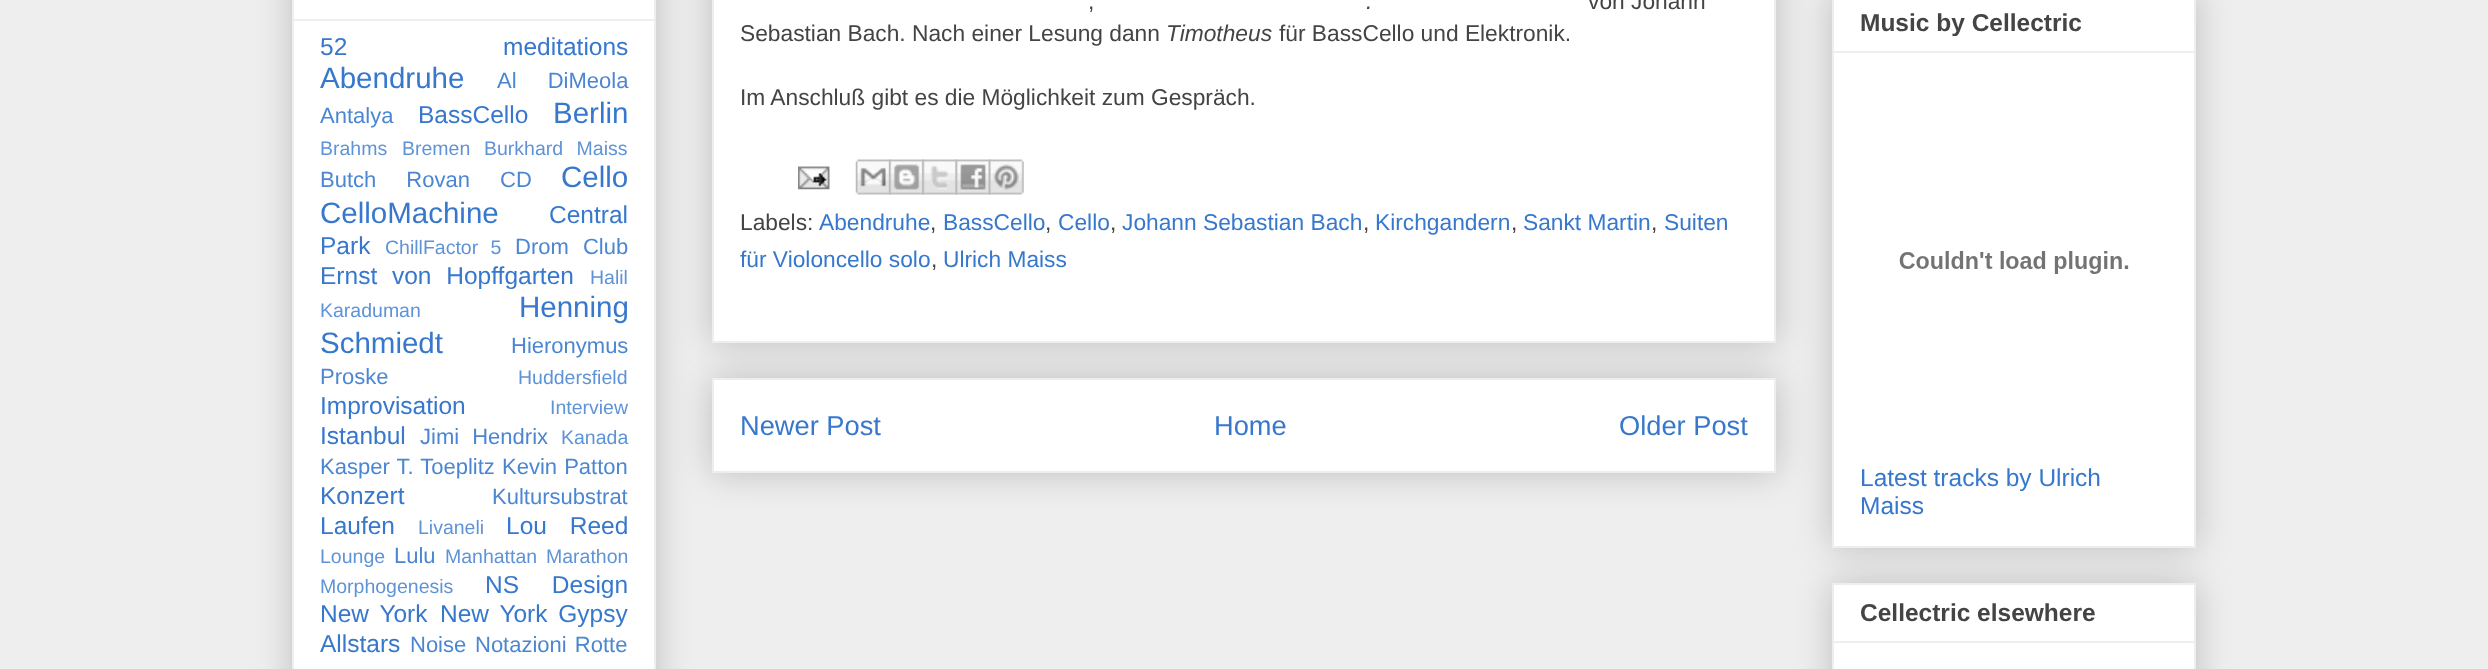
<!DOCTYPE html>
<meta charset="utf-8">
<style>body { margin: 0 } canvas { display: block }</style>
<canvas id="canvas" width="2488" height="669"></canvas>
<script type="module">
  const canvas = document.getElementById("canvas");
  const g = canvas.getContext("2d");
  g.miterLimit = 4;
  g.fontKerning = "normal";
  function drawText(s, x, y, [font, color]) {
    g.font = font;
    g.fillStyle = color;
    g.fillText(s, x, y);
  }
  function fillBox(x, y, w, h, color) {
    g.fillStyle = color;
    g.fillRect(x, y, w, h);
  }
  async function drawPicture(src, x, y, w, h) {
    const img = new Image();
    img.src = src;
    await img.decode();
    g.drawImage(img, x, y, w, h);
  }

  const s1 = ["24.5px Liberation Sans", "#3778CD"];
  const s2 = ["29.5px Liberation Sans", "#3778CD"];
  const s3 = ["22px Liberation Sans", "#4B86D2"];
  const s4 = ["19.5px Liberation Sans", "#5F93D7"];
  const s5 = ["22.75px Liberation Sans", "#444444"];
  const s6 = ["italic 22.75px Liberation Sans", "#444444"];
  const s7 = ["22.75px Liberation Sans", "#3778CD"];
  const s8 = ["27.25px Liberation Sans", "#3778CD"];
  const s9 = ["bold 24.5px Liberation Sans", "#444444"];

  fillBox(0, 0, 2488, 669, "#EEEEEE");
  g.fillStyle = "rgba(0, 0, 0, 0.2)";
  g.filter = "blur(17.5px)";
  g.beginPath();
  g.rect(292, -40, 364, 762);
  g.fill();
  g.filter = "none";
  g.fillStyle = "#FFFFFF";
  g.beginPath();
  g.rect(293, -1, 362, 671);
  g.fill();
  g.strokeStyle = "#EEEEEE";
  g.lineWidth = 2;
  g.stroke();
  fillBox(294, 19, 361, 2, "#EEEEEE");
  g.wordSpacing = "149px";
  drawText("52 meditations", 320, 55, s1);
  g.wordSpacing = "0px";
  drawText("Abendruhe", 320, 88, s2);
  g.wordSpacing = "25px";
  drawText("Al DiMeola", 497, 88, s3);
  g.wordSpacing = "0px";
  drawText("Antalya", 320, 123, s3);
  drawText("BassCello", 418, 123, s1);
  drawText("Berlin", 553, 123, s2);
  drawText("Brahms", 320, 155, s4);
  drawText("Bremen", 402, 155, s4);
  g.wordSpacing = "8px";
  drawText("Burkhard Maiss", 484, 155, s4);
  g.wordSpacing = "24px";
  drawText("Butch Rovan", 320, 187, s3);
  g.wordSpacing = "0px";
  drawText("CD", 500, 187, s3);
  drawText("Cello", 561, 187, s2);
  drawText("CelloMachine", 320, 223, s2);
  drawText("Central", 549, 223, s1);
  drawText("Park", 320, 254, s1);
  g.wordSpacing = "7px";
  drawText("ChillFactor 5", 385, 254, s4);
  g.wordSpacing = "8px";
  drawText("Drom Club", 515, 254, s3);
  drawText("Ernst von Hopffgarten", 320, 284, s1);
  g.wordSpacing = "0px";
  drawText("Halil", 590, 284, s4);
  drawText("Karaduman", 320, 317, s4);
  drawText("Henning", 519, 317, s2);
  drawText("Schmiedt", 320, 353, s2);
  drawText("Hieronymus", 511, 353, s3);
  drawText("Proske", 320, 384, s3);
  drawText("Huddersfield", 518, 384, s4);
  drawText("Improvisation", 320, 414, s1);
  drawText("Interview", 550, 414, s4);
  drawText("Istanbul", 320, 444, s1);
  g.wordSpacing = "7px";
  drawText("Jimi Hendrix", 420, 444, s3);
  g.wordSpacing = "0px";
  drawText("Kanada", 561, 444, s4);
  g.wordSpacing = "1px";
  drawText("Kasper T. Toeplitz", 320, 474, s3);
  drawText("Kevin Patton", 502, 474, s3);
  g.wordSpacing = "0px";
  drawText("Konzert", 320, 504, s1);
  drawText("Kultursubstrat", 492, 504, s3);
  drawText("Laufen", 320, 534, s1);
  drawText("Livaneli", 418, 534, s4);
  g.wordSpacing = "16px";
  drawText("Lou Reed", 506, 534, s1);
  g.wordSpacing = "0px";
  drawText("Lounge", 320, 563, s4);
  drawText("Lulu", 394, 563, s3);
  drawText("Manhattan", 445, 563, s4);
  drawText("Marathon", 546, 563, s4);
  drawText("Morphogenesis", 320, 593, s4);
  g.wordSpacing = "26px";
  drawText("NS Design", 485, 593, s1);
  g.wordSpacing = "4px";
  drawText("New York", 320, 622, s1);
  drawText("New York Gypsy", 440, 622, s1);
  g.wordSpacing = "0px";
  drawText("Allstars", 320, 652, s1);
  drawText("Noise", 410, 652, s3);
  g.wordSpacing = "2px";
  drawText("Notazioni Rotte", 475, 652, s3);
  g.fillStyle = "rgba(0, 0, 0, 0.2)";
  g.filter = "blur(17.5px)";
  g.beginPath();
  g.rect(712, 378, 1064, 95);
  g.fill();
  g.filter = "none";
  g.fillStyle = "#FFFFFF";
  g.beginPath();
  g.rect(713, 379, 1062, 93);
  g.fill();
  g.stroke();
  g.fillStyle = "rgba(0, 0, 0, 0.2)";
  g.filter = "blur(17.5px)";
  g.beginPath();
  g.rect(712, -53, 1064, 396);
  g.fill();
  g.filter = "none";
  g.fillStyle = "#FFFFFF";
  g.beginPath();
  g.rect(713, -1, 1062, 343);
  g.fill();
  g.stroke();
  g.wordSpacing = "0px";
  drawText(",", 1088, 9, s5);
  drawText(".", 1366, 9, s6);
  drawText("von Johann", 1588, 9, s5);
  drawText("Sebastian Bach. Nach einer Lesung dann", 740, 41, s5);
  drawText("Timotheus", 1166, 41, s6);
  drawText("für BassCello und Elektronik.", 1279, 41, s5);
  drawText("Im Anschluß gibt es die Möglichkeit zum Gespräch.", 740, 105, s5);
  await drawPicture("pic1.png", 798, 166, 32, 24);
  await drawPicture("pic2.png", 855, 159, 36, 36);
  await drawPicture("pic3.png", 889, 159, 35, 36);
  await drawPicture("pic4.png", 922, 159, 36, 36);
  await drawPicture("pic5.png", 955, 159, 36, 36);
  await drawPicture("pic6.png", 988, 159, 36, 36);
  drawText("Labels:", 740, 230, s5);
  drawText("Abendruhe", 819, 230, s7);
  drawText(",", 930, 230, s5);
  drawText("BassCello", 943, 230, s7);
  drawText(",", 1045, 230, s5);
  drawText("Cello", 1058, 230, s7);
  drawText(",", 1110, 230, s5);
  drawText("Johann Sebastian Bach", 1122, 230, s7);
  drawText(",", 1363, 230, s5);
  drawText("Kirchgandern", 1375, 230, s7);
  drawText(",", 1511, 230, s5);
  drawText("Sankt Martin", 1523, 230, s7);
  drawText(",", 1651, 230, s5);
  drawText("Suiten", 1664, 230, s7);
  drawText("für Violoncello solo", 740, 267, s7);
  drawText(",", 931, 267, s5);
  drawText("Ulrich Maiss", 943, 267, s7);
  drawText("Newer Post", 740, 435, s8);
  drawText("Home", 1214, 435, s8);
  drawText("Older Post", 1619, 435, s8);
  g.fillStyle = "rgba(0, 0, 0, 0.2)";
  g.filter = "blur(17.5px)";
  g.beginPath();
  g.rect(1832, -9, 364, 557);
  g.fill();
  g.filter = "none";
  g.fillStyle = "#FFFFFF";
  g.beginPath();
  g.rect(1833, -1, 362, 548);
  g.fill();
  g.stroke();
  drawText("Music by Cellectric", 1860, 31, s9);
  fillBox(1834, 51, 361, 2, "#EEEEEE");
  await drawPicture("pic7.png", 1899, 251, 230, 23);
  drawText("Latest tracks by Ulrich", 1860, 486, s1);
  drawText("Maiss", 1860, 514, s1);
  g.fillStyle = "rgba(0, 0, 0, 0.2)";
  g.filter = "blur(17.5px)";
  g.beginPath();
  g.rect(1832, 583, 364, 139);
  g.fill();
  g.filter = "none";
  g.fillStyle = "#FFFFFF";
  g.beginPath();
  g.rect(1833, 584, 362, 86);
  g.fill();
  g.stroke();
  drawText("Cellectric elsewhere", 1860, 621, s9);
  fillBox(1834, 641, 361, 2, "#EEEEEE");
</script>
